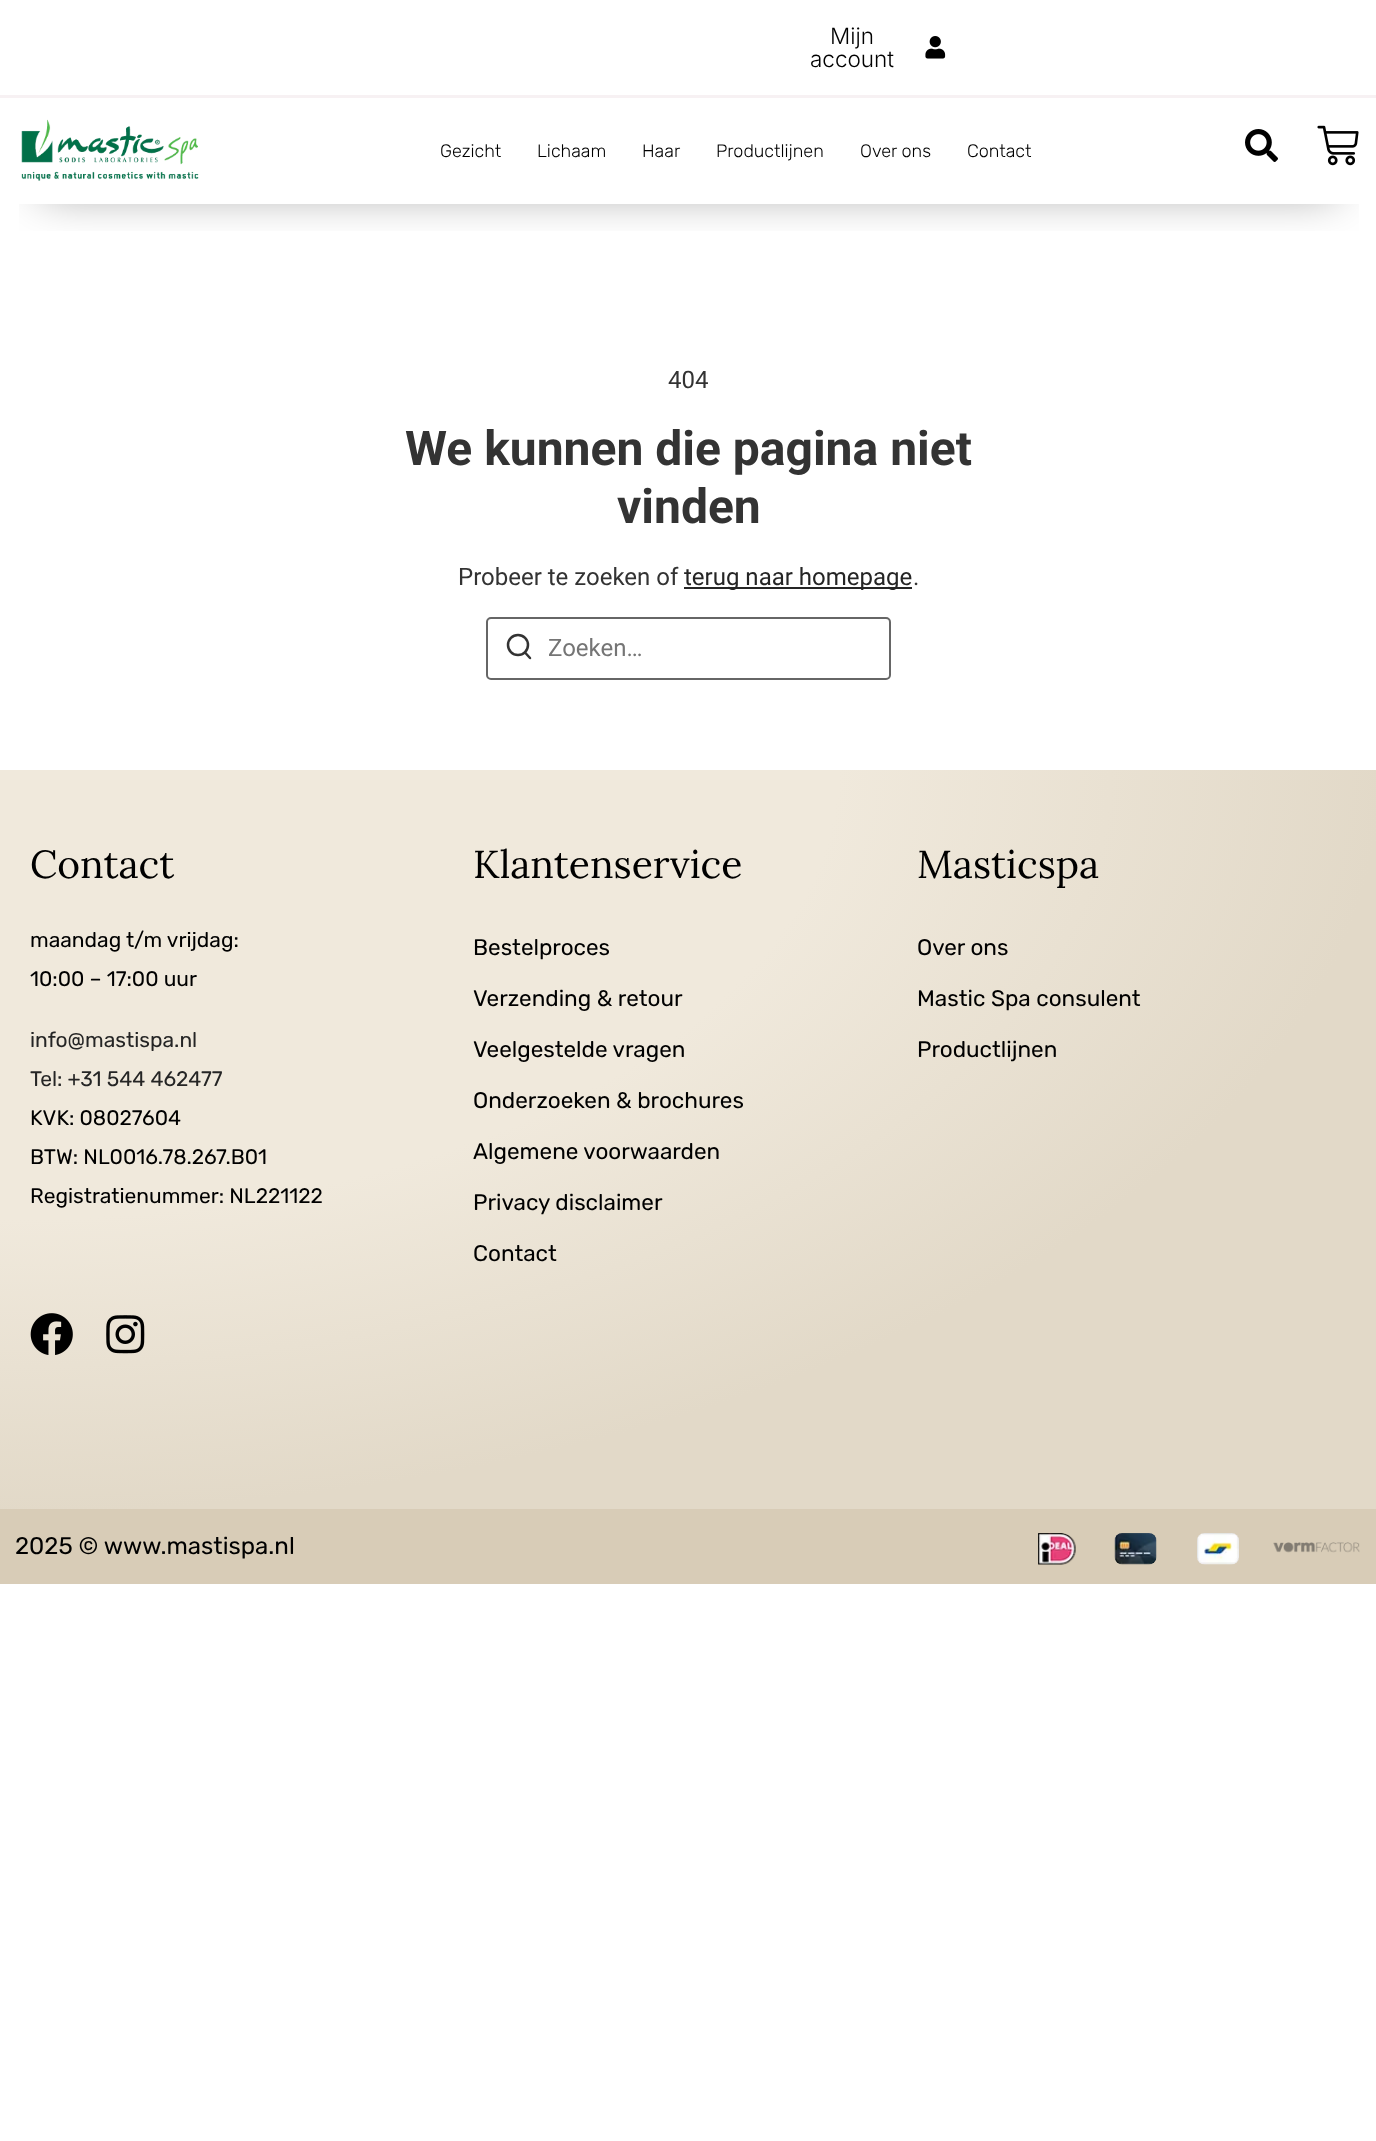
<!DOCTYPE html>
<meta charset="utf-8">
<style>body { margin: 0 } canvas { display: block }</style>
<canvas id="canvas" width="1376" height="2141"></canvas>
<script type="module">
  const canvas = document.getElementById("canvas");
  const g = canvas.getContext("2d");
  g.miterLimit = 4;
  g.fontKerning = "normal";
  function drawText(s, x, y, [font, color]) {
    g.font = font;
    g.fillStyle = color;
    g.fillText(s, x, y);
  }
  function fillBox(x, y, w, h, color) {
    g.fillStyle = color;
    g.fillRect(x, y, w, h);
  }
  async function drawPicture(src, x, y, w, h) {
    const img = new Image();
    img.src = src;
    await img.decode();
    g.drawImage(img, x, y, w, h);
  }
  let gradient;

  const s1 = ["300 22.5px Inter", "#000000"];
  const s2 = ["300 18px Rubik", "#000000"];
  const s3 = ["24px Roboto", "#333333"];
  const s4 = ["bold 48px Roboto", "#333333"];
  const s5 = ["24px Roboto", "#252525"];
  const s6 = ["24px Roboto", "#757575"];
  const s7 = ["39px Lora", "#000000"];
  const s8 = ["21px Rubik", "#000000"];
  const s9 = ["21px Rubik", "#252525"];
  const s10 = ["22.5px Rubik", "#000000"];
  const s11 = ["24px Rubik", "#000000"];

  fillBox(0, 0, 1376, 2141, "#FFFFFF");
  g.save();
  g.beginPath();
  g.rect(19, 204, 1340, 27);
  g.clip();
  g.fillStyle = "rgba(0, 0, 0, 0.5)";
  g.filter = "blur(23px)";
  g.beginPath();
  g.rect(41, 165, 1296, 26);
  g.fill();
  g.filter = "none";
  g.restore();
  fillBox(0, 95, 1376, 3, "#F7F1F3");
  drawText("Mijn", 830, 44, s1);
  drawText("account", 810, 67, s1);
  await drawPicture("pic1.png", 925, 36, 21, 23);
  await drawPicture("pic2.png", 21, 119, 178, 62);
  drawText("Gezicht", 440, 157, s2);
  drawText("Lichaam", 537, 157, s2);
  drawText("Haar", 642, 157, s2);
  drawText("Productlijnen", 716, 157, s2);
  drawText("Over ons", 860, 157, s2);
  drawText("Contact", 967, 157, s2);
  await drawPicture("pic3.png", 1245, 129, 33, 33);
  await drawPicture("pic4.png", 1317, 125, 42, 41);
  drawText("404", 668, 388, s3);
  drawText("We kunnen die pagina niet", 405, 465, s4);
  drawText("vinden", 617, 523, s4);
  drawText("Probeer te zoeken of", 458, 585, s3);
  fillBox(684, 587, 228, 2, "#252525");
  drawText("terug naar homepage", 684, 585, s5);
  drawText(".", 913, 585, s3);
  g.beginPath();
  g.roundRect(487, 618, 403, 61, 4);
  g.strokeStyle = "#666666";
  g.lineWidth = 2;
  g.stroke();
  g.beginPath();
  g.arc(518, 645, 10, 0, Math.PI * 2);
  g.strokeStyle = "#333333";
  g.lineWidth = 2.5;
  g.stroke();
  g.beginPath();
  g.moveTo(530, 658);
  g.lineTo(525, 652.5);
  g.lineCap = "round";
  g.lineJoin = "round";
  g.stroke();
  drawText("Zoeken…", 548, 656, s6);
  gradient = g.createRadialGradient(0, 1433.26, 0, 0, 1433.26, 1947);
  gradient.addColorStop(0.43, "#F0E9DC");
  gradient.addColorStop(0.71, "#E2D9C8");
  g.fillStyle = gradient;
  g.beginPath();
  g.rect(0, 770, 1376, 739);
  g.save();
  g.clip();
  g.scale(1, 1046 / 1947);
  g.fillRect(0, 0, 1376, 3986);
  g.restore();
  drawText("Contact", 30, 878, s7);
  drawText("maandag t/m vrijdag:", 30, 947, s8);
  drawText("10:00 – 17:00 uur", 30, 986, s8);
  drawText("info@mastispa.nl", 30, 1047, s9);
  drawText("Tel: +31 544 462477", 30, 1086, s9);
  drawText("KVK: 08027604", 30, 1125, s8);
  drawText("BTW: NL0016.78.267.B01", 30, 1164, s8);
  drawText("Registratienummer: NL221122", 30, 1203, s8);
  await drawPicture("pic5.png", 30, 1313, 43, 42);
  await drawPicture("pic6.png", 106, 1315, 39, 39);
  drawText("Klantenservice", 473, 878, s7);
  drawText("Bestelproces", 473, 955, s10);
  drawText("Verzending & retour", 473, 1006, s10);
  drawText("Veelgestelde vragen", 473, 1057, s10);
  drawText("Onderzoeken & brochures", 473, 1108, s10);
  drawText("Algemene voorwaarden", 473, 1159, s10);
  drawText("Privacy disclaimer", 473, 1210, s10);
  drawText("Contact", 473, 1261, s10);
  drawText("Masticspa", 917, 878, s7);
  drawText("Over ons", 917, 955, s10);
  drawText("Mastic Spa consulent", 917, 1006, s10);
  drawText("Productlijnen", 917, 1057, s10);
  fillBox(0, 1509, 1376, 75, "#D8CCB7");
  drawText("2025 © www.mastispa.nl", 15, 1554, s11);
  await drawPicture("pic7.png", 1038, 1533, 38, 32);
  await drawPicture("pic8.png", 1114, 1533, 43, 32);
  await drawPicture("pic9.png", 1197, 1533, 42, 32);
  await drawPicture("pic10.png", 1273, 1542, 87, 11);
</script>
